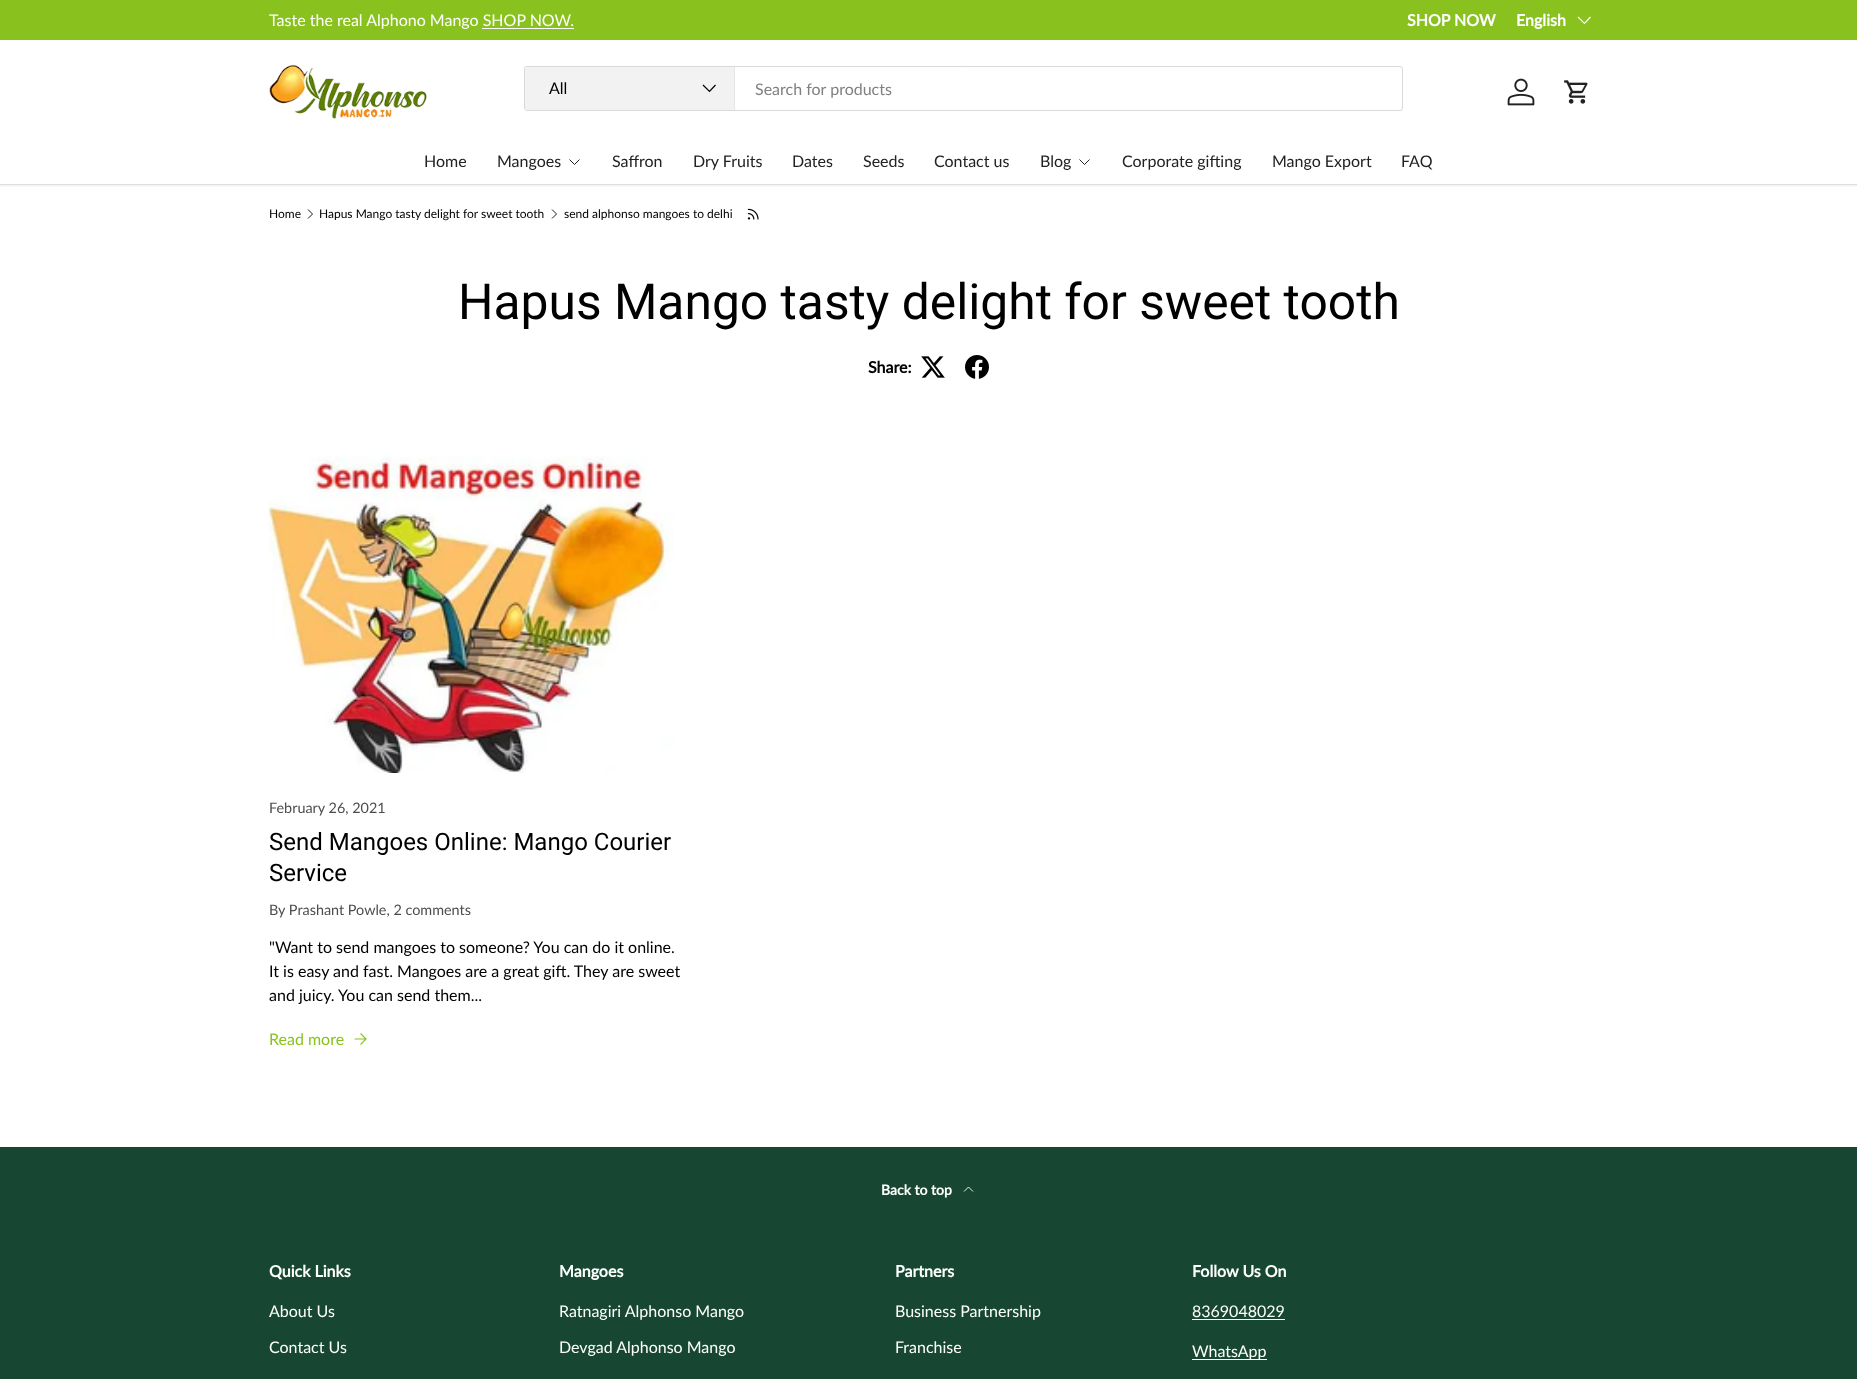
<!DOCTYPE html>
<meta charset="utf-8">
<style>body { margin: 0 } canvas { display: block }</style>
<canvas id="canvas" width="1857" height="1379"></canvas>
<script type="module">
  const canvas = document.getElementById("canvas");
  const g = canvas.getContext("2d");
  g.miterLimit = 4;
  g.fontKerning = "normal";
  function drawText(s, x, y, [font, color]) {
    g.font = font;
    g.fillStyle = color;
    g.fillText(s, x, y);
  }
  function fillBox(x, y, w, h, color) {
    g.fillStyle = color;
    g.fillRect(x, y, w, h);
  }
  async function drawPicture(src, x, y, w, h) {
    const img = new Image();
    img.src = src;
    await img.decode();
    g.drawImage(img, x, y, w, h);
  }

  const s1 = ["16px Lato", "#FFFFFF"];
  const s2 = ["bold 16px Lato", "#FFFFFF"];
  const s3 = ["16px Lato", "#000000"];
  const s4 = ["16px Lato", "#808080"];
  const s5 = ["16px Lato", "#222222"];
  const s6 = ["12px Lato", "#000000"];
  const s7 = ["49.75px Roboto", "#000000"];
  const s8 = ["bold 16px Lato", "#000000"];
  const s9 = ["14.4px Lato", "#4D4D4D"];
  const s10 = ["24px Roboto", "#000000"];
  const s11 = ["16px Lato", "#89C21E"];
  const s12 = ["bold 14px Lato", "#FFFFFF"];

  fillBox(0, 0, 1857, 1379, "#FFFFFF");
  g.save();
  g.beginPath();
  g.rect(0, 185, 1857, 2);
  g.clip();
  g.fillStyle = "rgba(0, 0, 0, 0.08)";
  g.filter = "blur(1.5px)";
  g.beginPath();
  g.rect(-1, 39, 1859, 147);
  g.fill();
  g.filter = "none";
  g.restore();
  fillBox(0, 0, 1857, 40, "#89C21E");
  drawText("Taste the real Alphono Mango SHOP NOW.", 269, 26, s1);
  fillBox(482, 28, 92, 1, "#FFFFFF");
  drawText("SHOP NOW", 1407, 26, s2);
  drawText("English", 1516, 26, s2);
  g.beginPath();
  g.moveTo(1590.5, 17);
  g.lineTo(1584.5, 23.5);
  g.lineTo(1578, 17);
  g.strokeStyle = "#FFFFFF";
  g.lineWidth = 1.2;
  g.stroke();
  await drawPicture("pic1.png", 269, 64, 158, 55);
  g.beginPath();
  g.roundRect(524.5, 66.5, 878, 44, 2.5);
  g.strokeStyle = "#D9D9D9";
  g.lineWidth = 1;
  g.stroke();
  g.fillStyle = "#F2F2F2";
  g.beginPath();
  g.roundRect(525, 67, 210, 43, [3, 0, 0, 3]);
  g.fill();
  fillBox(734, 67, 1, 43, "#E6E6E6");
  drawText("All", 549, 94, s3);
  g.beginPath();
  g.moveTo(715.5, 85);
  g.lineTo(709.5, 91.5);
  g.lineTo(703, 85);
  g.strokeStyle = "#000000";
  g.lineWidth = 1.2;
  g.stroke();
  drawText("Search for products", 755, 95, s4);
  await drawPicture("pic2.png", 1507, 78, 28, 28);
  await drawPicture("pic3.png", 1564, 80, 24, 24);
  drawText("Home", 424, 167, s5);
  drawText("Mangoes", 497, 167, s5);
  g.beginPath();
  g.moveTo(579.5, 159.5);
  g.lineTo(574.5, 164.5);
  g.lineTo(569.5, 159.5);
  g.strokeStyle = "#222222";
  g.lineWidth = 1;
  g.stroke();
  drawText("Saffron", 612, 167, s5);
  drawText("Dry Fruits", 693, 167, s5);
  drawText("Dates", 792, 167, s5);
  drawText("Seeds", 863, 167, s5);
  drawText("Contact us", 934, 167, s5);
  drawText("Blog", 1040, 167, s5);
  g.beginPath();
  g.moveTo(1089.5, 159.5);
  g.lineTo(1084.5, 164.5);
  g.lineTo(1079.5, 159.5);
  g.stroke();
  drawText("Corporate gifting", 1122, 167, s5);
  drawText("Mango Export", 1272, 167, s5);
  drawText("FAQ", 1401, 167, s5);
  fillBox(0, 184, 1857, 1, "#DEDEDE");
  drawText("Home", 269, 218, s6);
  g.beginPath();
  g.moveTo(308, 209.5);
  g.lineTo(312.5, 214);
  g.lineTo(308, 218.5);
  g.strokeStyle = "#000000";
  g.lineWidth = 0.9;
  g.stroke();
  drawText("Hapus Mango tasty delight for sweet tooth", 319, 218, s6);
  g.beginPath();
  g.moveTo(552, 209.5);
  g.lineTo(556.5, 214);
  g.lineTo(552, 218.5);
  g.stroke();
  drawText("send alphonso mangoes to delhi", 564, 218, s6);
  await drawPicture("pic4.png", 747, 208, 12, 12);
  drawText("Hapus Mango tasty delight for sweet tooth", 458, 319, s7);
  drawText("Share:", 868, 373, s8);
  await drawPicture("pic5.png", 921, 356, 24, 22);
  await drawPicture("pic6.png", 965, 355, 24, 24);
  await drawPicture("pic7.png", 269, 456, 405, 317);
  drawText("February 26, 2021", 269, 813, s9);
  drawText("Send Mangoes Online: Mango Courier", 269, 850, s10);
  drawText("Service", 269, 881, s10);
  drawText("By Prashant Powle, 2 comments", 269, 915, s9);
  drawText("\"Want to send mangoes to someone? You can do it online.", 269, 953, s3);
  drawText("It is easy and fast. Mangoes are a great gift. They are sweet", 269, 977, s3);
  drawText("and juicy. You can send them...", 269, 1001, s3);
  drawText("Read more", 269, 1045, s11);
  g.beginPath();
  g.moveTo(354.5, 1039);
  g.lineTo(365.5, 1039);
  g.moveTo(360.5, 1033.5);
  g.lineTo(366, 1039);
  g.lineTo(360.5, 1044.5);
  g.strokeStyle = "#89C21E";
  g.lineWidth = 1.1;
  g.stroke();
  fillBox(0, 1147, 1857, 232, "#174733");
  drawText("Back to top", 881, 1195, s12);
  g.beginPath();
  g.moveTo(964, 1191.5);
  g.lineTo(968.5, 1187);
  g.lineTo(973, 1191.5);
  g.strokeStyle = "#FFFFFF";
  g.lineWidth = 0.9;
  g.stroke();
  drawText("Quick Links", 269, 1277, s2);
  drawText("About Us", 269, 1317, s1);
  drawText("Contact Us", 269, 1353, s1);
  drawText("Mangoes", 559, 1277, s2);
  drawText("Ratnagiri Alphonso Mango", 559, 1317, s1);
  drawText("Devgad Alphonso Mango", 559, 1353, s1);
  drawText("Partners", 895, 1277, s2);
  drawText("Business Partnership", 895, 1317, s1);
  drawText("Franchise", 895, 1353, s1);
  drawText("Follow Us On", 1192, 1277, s2);
  drawText("8369048029", 1192, 1317, s1);
  fillBox(1192, 1319, 93, 1, "#FFFFFF");
  fillBox(1192, 1359, 75, 1, "#FFFFFF");
  drawText("WhatsApp", 1192, 1357, s1);
</script>
